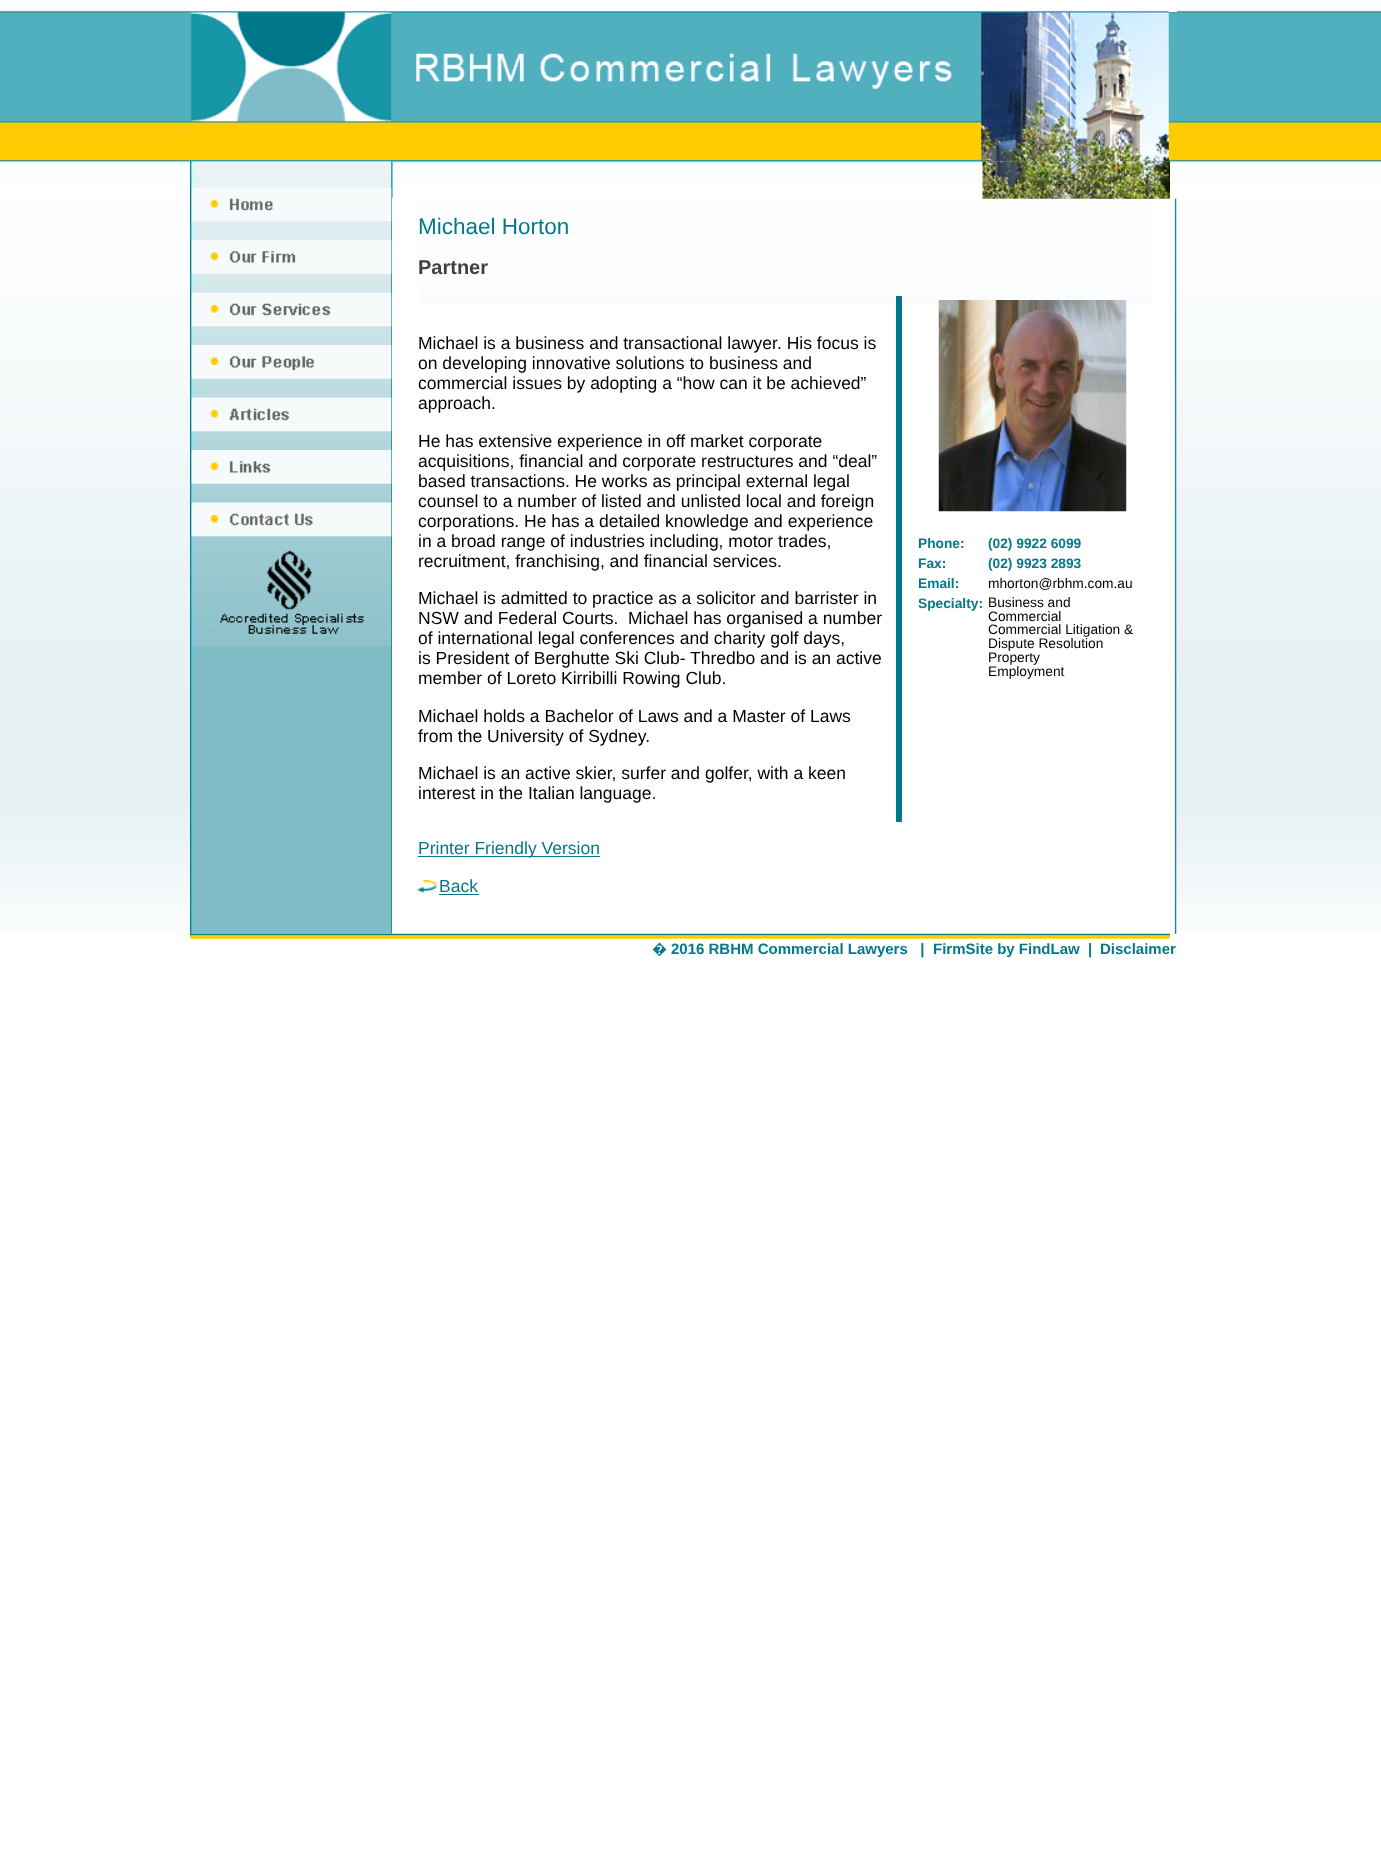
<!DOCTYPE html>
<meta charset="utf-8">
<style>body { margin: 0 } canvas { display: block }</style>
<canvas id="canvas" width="1381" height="1849"></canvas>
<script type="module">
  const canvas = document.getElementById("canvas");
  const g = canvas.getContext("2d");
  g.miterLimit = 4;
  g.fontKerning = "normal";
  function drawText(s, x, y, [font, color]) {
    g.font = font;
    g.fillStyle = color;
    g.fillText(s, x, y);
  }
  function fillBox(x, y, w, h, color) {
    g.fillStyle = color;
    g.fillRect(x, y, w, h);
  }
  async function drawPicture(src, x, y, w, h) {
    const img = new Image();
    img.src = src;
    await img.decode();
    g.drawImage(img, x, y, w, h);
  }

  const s1 = ["22.5px Liberation Sans", "#05788A"];
  const s2 = ["bold 20px Liberation Sans", "#404040"];
  const s3 = ["17.5px Liberation Sans", "#000000"];
  const s4 = ["bold 13.75px Liberation Sans", "#05788A"];
  const s5 = ["13.75px Liberation Sans", "#000000"];
  const s6 = ["17.5px Liberation Sans", "#05788A"];
  const s7 = ["bold 15px Noto Sans", "#05788A"];
  const s8 = ["bold 15px Liberation Sans", "#05788A"];

  fillBox(0, 0, 1381, 1849, "#FFFFFF");
  await drawPicture("pic1.png", 0, 1, 1381, 931);
  fillBox(190, 1, 987, 11, "#FFFFFF");
  await drawPicture("pic5.png", 190, 161, 203, 773);
  await drawPicture("pic6.png", 190, 161, 203, 486);
  await drawPicture("pic2.png", 190, 11, 202, 151);
  await drawPicture("pic3.png", 391, 11, 591, 151);
  await drawPicture("pic4.png", 981, 11, 188, 151);
  await drawPicture("pic7.png", 190, 187, 202, 35);
  await drawPicture("pic8.png", 190, 240, 202, 34);
  await drawPicture("pic9.png", 190, 292, 202, 35);
  await drawPicture("pic10.png", 190, 345, 202, 34);
  await drawPicture("pic11.png", 190, 397, 202, 35);
  await drawPicture("pic12.png", 190, 450, 202, 34);
  await drawPicture("pic13.png", 190, 502, 202, 35);
  await drawPicture("pic14.png", 220, 550, 144, 84);
  await drawPicture("pic18.png", 1152, 198, 25, 736);
  await drawPicture("pic15.png", 982, 161, 188, 38);
  fillBox(392, 198, 26, 736, "#FFFFFF");
  fillBox(418, 304, 734, 628, "#FFFFFF");
  drawText("Michael Horton", 418, 234, s1);
  drawText("Partner", 418, 274, s2);
  drawText("Michael is a business and transactional lawyer. His focus is", 418, 349, s3);
  drawText("on developing innovative solutions to business and", 418, 369, s3);
  drawText("commercial issues by adopting a “how can it be achieved”", 418, 389, s3);
  drawText("approach.", 418, 409, s3);
  drawText("He has extensive experience in off market corporate", 418, 447, s3);
  drawText("acquisitions, financial and corporate restructures and “deal”", 418, 467, s3);
  drawText("based transactions. He works as principal external legal", 418, 487, s3);
  drawText("counsel to a number of listed and unlisted local and foreign", 418, 507, s3);
  drawText("corporations. He has a detailed knowledge and experience", 418, 527, s3);
  drawText("in a broad range of industries including, motor trades,", 418, 547, s3);
  drawText("recruitment, franchising, and financial services.", 418, 567, s3);
  drawText("Michael is admitted to practice as a solicitor and barrister in", 418, 604, s3);
  drawText("NSW and Federal Courts.  Michael has organised a number", 418, 624, s3);
  drawText("of international legal conferences and charity golf days,", 418, 644, s3);
  drawText("is President of Berghutte Ski Club- Thredbo and is an active", 418, 664, s3);
  drawText("member of Loreto Kirribilli Rowing Club.", 418, 684, s3);
  drawText("Michael holds a Bachelor of Laws and a Master of Laws", 418, 722, s3);
  drawText("from the University of Sydney.", 418, 742, s3);
  drawText("Michael is an active skier, surfer and golfer, with a keen", 418, 779, s3);
  drawText("interest in the Italian language.", 418, 799, s3);
  fillBox(896, 296, 6, 526, "#00778A");
  await drawPicture("pic16.png", 938, 300, 189, 212);
  drawText("Phone:", 918, 548, s4);
  drawText("(02) 9922 6099", 988, 548, s4);
  drawText("Fax:", 918, 568, s4);
  drawText("(02) 9923 2893", 988, 568, s4);
  drawText("Email:", 918, 588, s4);
  drawText("mhorton@rbhm.com.au", 988, 588, s5);
  drawText("Specialty:", 918, 608, s4);
  drawText("Business and", 988, 607, s5);
  drawText("Commercial", 988, 621, s5);
  drawText("Commercial Litigation &", 988, 634, s5);
  drawText("Dispute Resolution", 988, 648, s5);
  drawText("Property", 988, 662, s5);
  drawText("Employment", 988, 676, s5);
  fillBox(418, 856, 182, 1, "#05788A");
  drawText("Printer Friendly Version", 418, 854, s6);
  await drawPicture("pic17.png", 417, 880, 20, 13);
  drawText("Back", 439, 892, s6);
  fillBox(439, 894, 40, 1, "#05788A");
  await drawPicture("pic19.png", 190, 933, 980, 6);
  drawText("�", 652, 954, s7);
  drawText("2016 RBHM Commercial Lawyers   |", 671, 954, s8);
  drawText("FirmSite by FindLaw", 933, 954, s8);
  drawText("|", 1088, 954, s8);
  drawText("Disclaimer", 1100, 954, s8);
</script>
